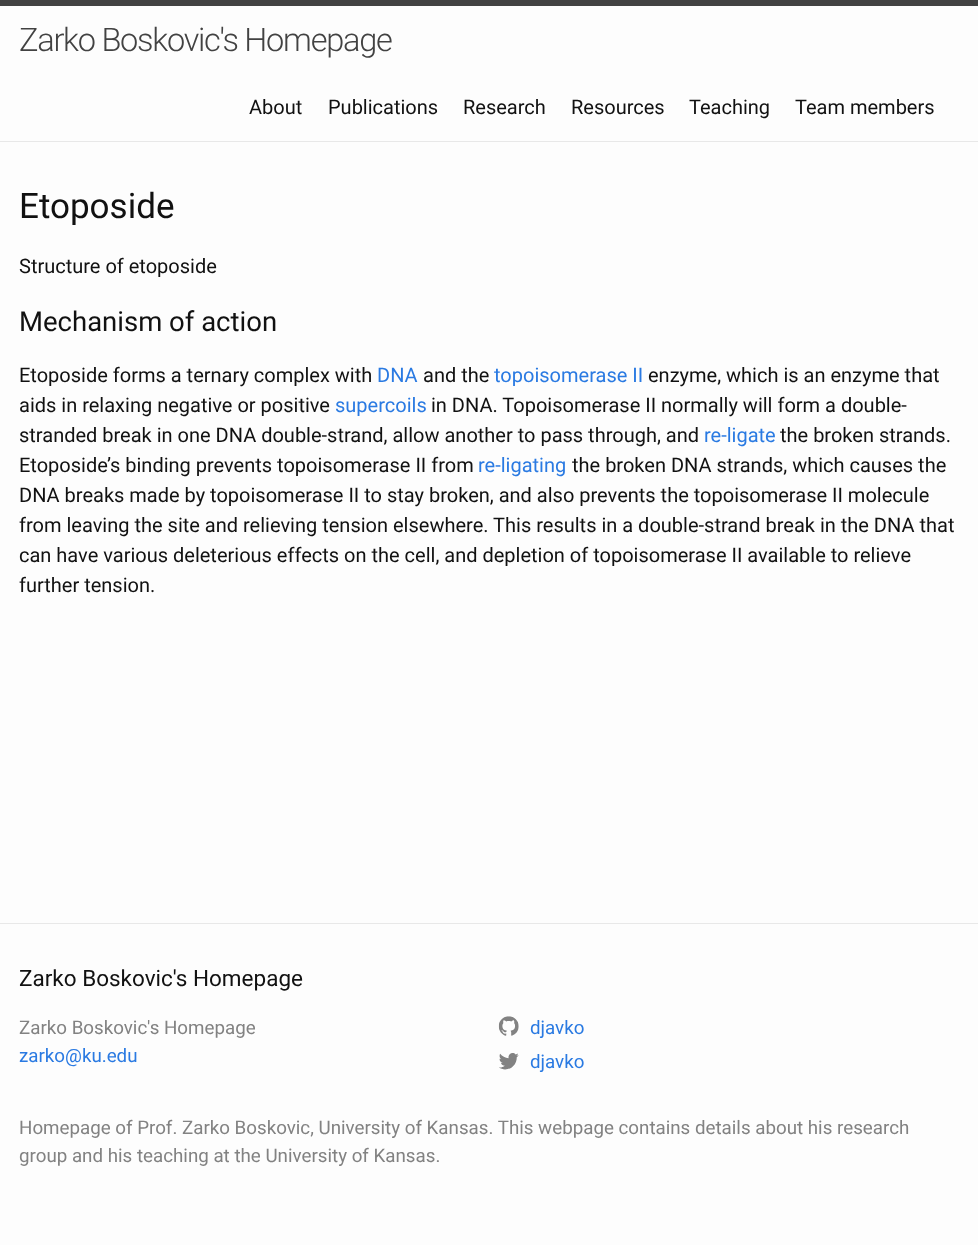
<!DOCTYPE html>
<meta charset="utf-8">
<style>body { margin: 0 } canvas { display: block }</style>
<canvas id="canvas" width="978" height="1245"></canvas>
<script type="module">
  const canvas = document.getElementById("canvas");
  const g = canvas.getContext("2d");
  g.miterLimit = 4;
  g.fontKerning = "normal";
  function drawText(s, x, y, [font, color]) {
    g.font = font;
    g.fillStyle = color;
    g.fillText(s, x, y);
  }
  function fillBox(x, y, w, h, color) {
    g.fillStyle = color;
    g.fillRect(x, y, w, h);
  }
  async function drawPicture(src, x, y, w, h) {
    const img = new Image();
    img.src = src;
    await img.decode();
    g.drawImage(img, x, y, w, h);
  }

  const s1 = ["300 32.5px Roboto", "#424242"];
  const s2 = ["20px Roboto", "#111111"];
  const s3 = ["35px Roboto", "#111111"];
  const s4 = ["27.5px Roboto", "#111111"];
  const s5 = ["20px Roboto", "#2A7AE2"];
  const s6 = ["22.5px Roboto", "#111111"];
  const s7 = ["18.75px Roboto", "#828282"];
  const s8 = ["18.75px Roboto", "#2A7AE2"];

  fillBox(0, 0, 978, 1245, "#FDFDFD");
  fillBox(0, 0, 978, 6, "#424242");
  fillBox(0, 141, 978, 1, "#E8E8E8");
  g.letterSpacing = "-1.25px";
  drawText("Zarko Boskovic's Homepage", 19, 51, s1);
  g.letterSpacing = "0px";
  drawText("About", 249, 114, s2);
  drawText("Publications", 328, 114, s2);
  drawText("Research", 463, 114, s2);
  drawText("Resources", 571, 114, s2);
  drawText("Teaching", 689, 114, s2);
  drawText("Team members", 795, 114, s2);
  drawText("Etoposide", 19, 218, s3);
  drawText("Structure of etoposide", 19, 273, s2);
  drawText("Mechanism of action", 19, 331, s4);
  drawText("Etoposide forms a ternary complex with", 19, 382, s2);
  drawText("DNA", 377, 382, s5);
  drawText("and the", 423, 382, s2);
  drawText("topoisomerase II", 494, 382, s5);
  drawText("enzyme, which is an enzyme that", 648, 382, s2);
  drawText("aids in relaxing negative or positive", 19, 412, s2);
  drawText("supercoils", 335, 412, s5);
  drawText("in DNA. Topoisomerase II normally will form a double-", 431, 412, s2);
  drawText("stranded break in one DNA double-strand, allow another to pass through, and", 19, 442, s2);
  drawText("re-ligate", 704, 442, s5);
  drawText("the broken strands.", 780, 442, s2);
  drawText("Etoposide’s binding prevents topoisomerase II from", 19, 472, s2);
  drawText("re-ligating", 478, 472, s5);
  drawText("the broken DNA strands, which causes the", 572, 472, s2);
  drawText("DNA breaks made by topoisomerase II to stay broken, and also prevents the topoisomerase II molecule", 19, 502, s2);
  drawText("from leaving the site and relieving tension elsewhere. This results in a double-strand break in the DNA that", 19, 532, s2);
  drawText("can have various deleterious effects on the cell, and depletion of topoisomerase II available to relieve", 19, 562, s2);
  drawText("further tension.", 19, 592, s2);
  fillBox(0, 923, 978, 1, "#E8E8E8");
  drawText("Zarko Boskovic's Homepage", 19, 986, s6);
  drawText("Zarko Boskovic's Homepage", 19, 1034, s7);
  drawText("zarko@ku.edu", 19, 1062, s8);
  await drawPicture("pic1.png", 498, 1016, 21, 20);
  drawText("djavko", 530, 1034, s8);
  await drawPicture("pic2.png", 499, 1053, 20, 17);
  drawText("djavko", 530, 1068, s8);
  drawText("Homepage of Prof. Zarko Boskovic, University of Kansas. This webpage contains details about his research", 19, 1134, s7);
  drawText("group and his teaching at the University of Kansas.", 19, 1162, s7);
</script>
